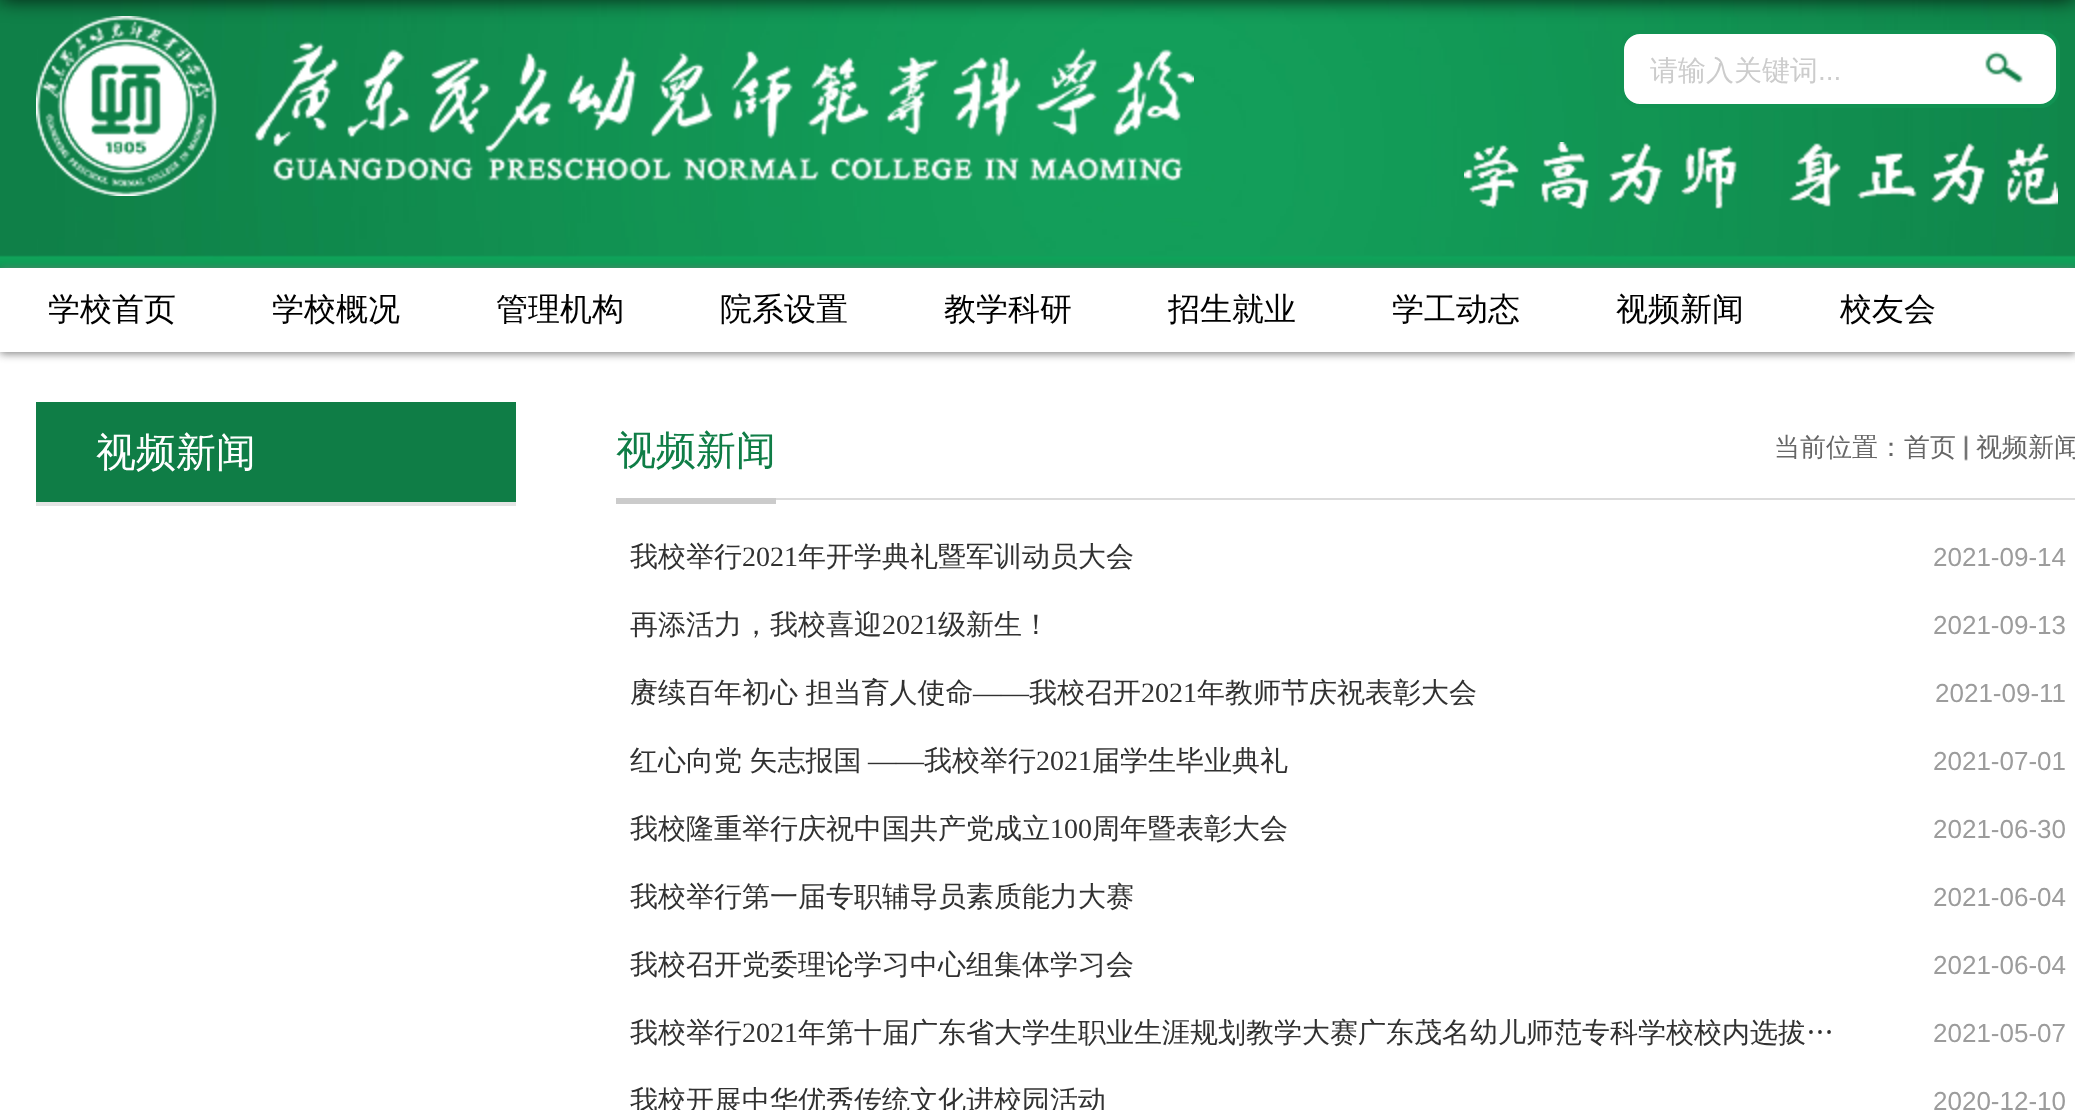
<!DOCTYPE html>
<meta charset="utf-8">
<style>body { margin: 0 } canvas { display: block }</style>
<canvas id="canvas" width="2075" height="1110"></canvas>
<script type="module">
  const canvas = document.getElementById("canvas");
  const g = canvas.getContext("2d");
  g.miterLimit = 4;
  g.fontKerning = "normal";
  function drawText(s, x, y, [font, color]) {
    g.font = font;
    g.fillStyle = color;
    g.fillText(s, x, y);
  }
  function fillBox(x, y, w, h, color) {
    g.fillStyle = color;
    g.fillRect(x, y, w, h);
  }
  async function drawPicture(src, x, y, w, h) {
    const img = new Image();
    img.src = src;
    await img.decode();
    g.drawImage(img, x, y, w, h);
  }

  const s1 = ["500 28px WenQuanYi Zen Hei", "#CCCCCC"];
  const s2 = ["28px Liberation Sans", "#CCCCCC"];
  const s3 = ["500 32px WenQuanYi Zen Hei", "#000000"];
  const s4 = ["500 40px WenQuanYi Zen Hei", "#FFFFFF"];
  const s5 = ["500 40px WenQuanYi Zen Hei", "#0F7D46"];
  const s6 = ["500 26px WenQuanYi Zen Hei", "#666666"];
  const s7 = ["500 28px WenQuanYi Zen Hei", "#313131"];
  const s8 = ["28px Liberation Serif", "#313131"];
  const s9 = ["26px Liberation Sans", "#9C9C9C"];

  fillBox(0, 0, 2075, 1110, "#FFFFFF");
  await drawPicture("pic1.png", 0, 0, 2075, 268);
  await drawPicture("pic3.png", 36, 16, 1158, 180);
  g.beginPath();
  g.roundRect(1622, 32, 436, 74, 18);
  g.fill();
  g.strokeStyle = "#119252";
  g.lineWidth = 4;
  g.stroke();
  g.fillStyle = "rgba(0, 0, 0, 0.8)";
  g.filter = "blur(10px)";
  g.beginPath();
  g.rect(0, -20, 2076, 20);
  g.fill();
  g.filter = "none";
  await drawPicture("pic2.png", 1464, 142, 594, 68);
  drawText("请输入关键词", 1650, 80, s1);
  drawText("...", 1818, 80, s2);
  await drawPicture("pic4.png", 1985, 51, 38, 32);
  g.save();
  g.beginPath();
  g.moveTo(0, 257);
  g.lineTo(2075, 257);
  g.lineTo(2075, 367);
  g.lineTo(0, 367);
  g.closePath();
  g.moveTo(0, 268);
  g.lineTo(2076, 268);
  g.lineTo(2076, 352);
  g.lineTo(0, 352);
  g.closePath();
  g.clip("evenodd");
  g.fillStyle = "#888888";
  g.filter = "blur(4px)";
  g.beginPath();
  g.rect(0, 270, 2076, 84);
  g.fill();
  g.filter = "none";
  g.restore();
  drawText("学校首页", 48, 320, s3);
  drawText("学校概况", 272, 320, s3);
  drawText("管理机构", 496, 320, s3);
  drawText("院系设置", 720, 320, s3);
  drawText("教学科研", 944, 320, s3);
  drawText("招生就业", 1168, 320, s3);
  drawText("学工动态", 1392, 320, s3);
  drawText("视频新闻", 1616, 320, s3);
  drawText("校友会", 1840, 320, s3);
  fillBox(36, 402, 480, 100, "#0F7D46");
  drawText("视频新闻", 96, 466, s4);
  fillBox(36, 502, 480, 4, "#E4E4E4");
  fillBox(776, 498, 1299, 2, "#DBDBDB");
  fillBox(616, 498, 160, 6, "#CBCBCB");
  drawText("视频新闻", 616, 464, s5);
  drawText("当前位置：首页", 1774, 456, s6);
  await drawPicture("pic5.png", 1964, 435, 4, 26);
  drawText("视频新闻", 1976, 456, s6);
  drawText("我校举行", 630, 566, s7);
  drawText("2021", 742, 566, s8);
  drawText("年开学典礼暨军训动员大会", 798, 566, s7);
  drawText("2021-09-14", 1933, 566, s9);
  drawText("再添活力，我校喜迎", 630, 634, s7);
  drawText("2021", 882, 634, s8);
  drawText("级新生！", 938, 634, s7);
  drawText("2021-09-13", 1933, 634, s9);
  g.wordSpacing = "-1px";
  drawText("赓续百年初心 担当育人使命", 630, 702, s7);
  g.wordSpacing = "0px";
  drawText("——", 973, 702, s8);
  drawText("我校召开", 1029, 702, s7);
  drawText("2021", 1141, 702, s8);
  drawText("年教师节庆祝表彰大会", 1197, 702, s7);
  drawText("2021-09-11", 1935, 702, s9);
  g.wordSpacing = "-1px";
  drawText("红心向党 矢志报国", 630, 770, s7);
  g.wordSpacing = "0px";
  drawText("——", 868, 770, s8);
  drawText("我校举行", 924, 770, s7);
  drawText("2021", 1036, 770, s8);
  drawText("届学生毕业典礼", 1092, 770, s7);
  drawText("2021-07-01", 1933, 770, s9);
  drawText("我校隆重举行庆祝中国共产党成立", 630, 838, s7);
  drawText("100", 1050, 838, s8);
  drawText("周年暨表彰大会", 1092, 838, s7);
  drawText("2021-06-30", 1933, 838, s9);
  drawText("我校举行第一届专职辅导员素质能力大赛", 630, 906, s7);
  drawText("2021-06-04", 1933, 906, s9);
  drawText("我校召开党委理论学习中心组集体学习会", 630, 974, s7);
  drawText("2021-06-04", 1933, 974, s9);
  drawText("我校举行", 630, 1042, s7);
  drawText("2021", 742, 1042, s8);
  drawText("年第十届广东省大学生职业生涯规划教学大赛广东茂名幼儿师范专科学校校内选拔…", 798, 1042, s7);
  drawText("2021-05-07", 1933, 1042, s9);
  drawText("我校开展中华优秀传统文化进校园活动", 630, 1110, s7);
  drawText("2020-12-10", 1933, 1110, s9);
</script>
